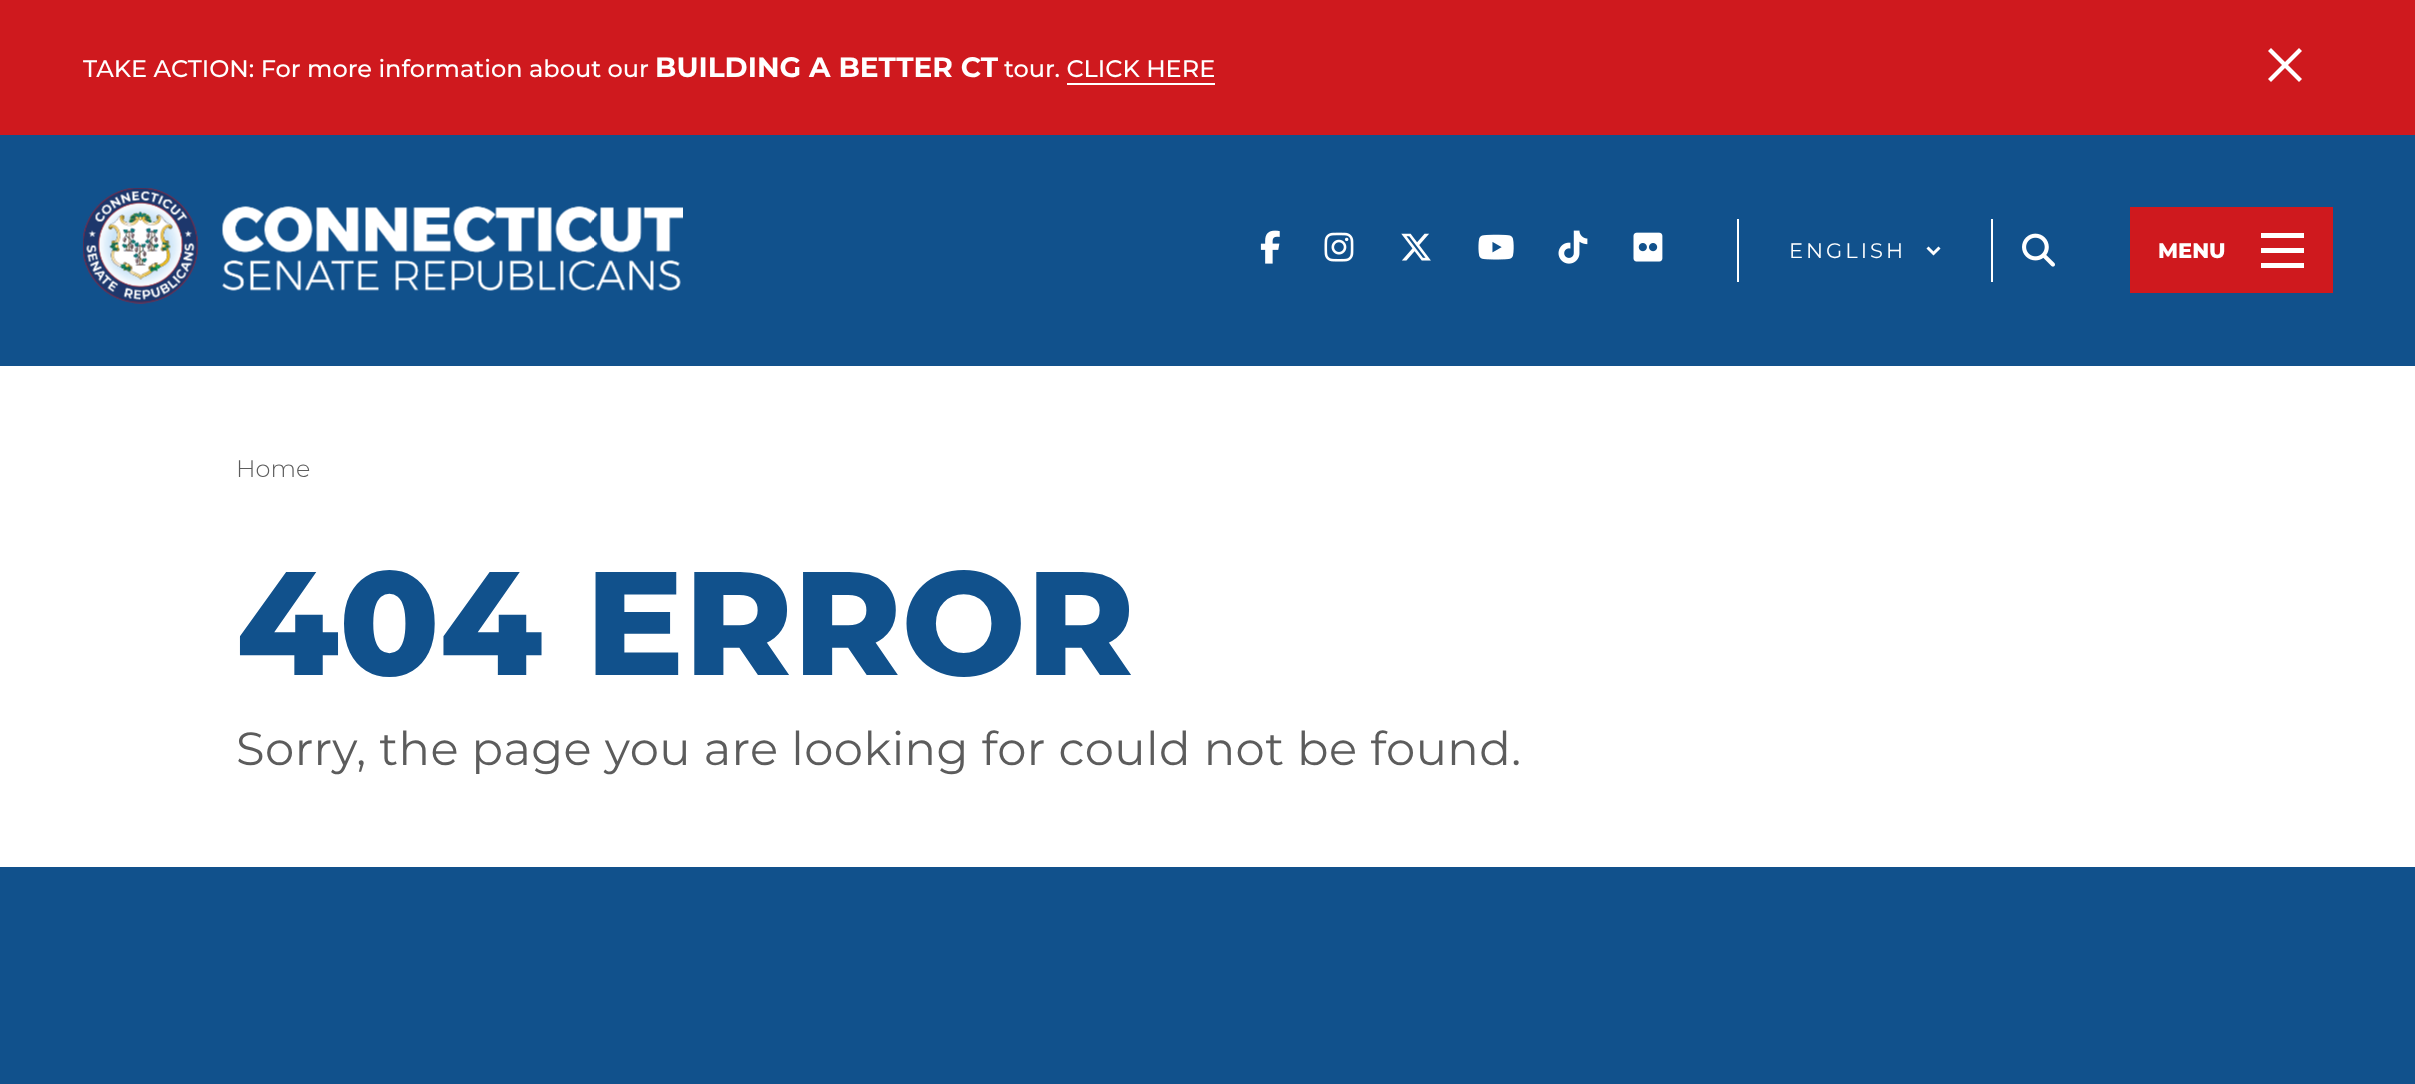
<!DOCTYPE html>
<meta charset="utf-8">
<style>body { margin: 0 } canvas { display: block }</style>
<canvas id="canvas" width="2415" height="1084"></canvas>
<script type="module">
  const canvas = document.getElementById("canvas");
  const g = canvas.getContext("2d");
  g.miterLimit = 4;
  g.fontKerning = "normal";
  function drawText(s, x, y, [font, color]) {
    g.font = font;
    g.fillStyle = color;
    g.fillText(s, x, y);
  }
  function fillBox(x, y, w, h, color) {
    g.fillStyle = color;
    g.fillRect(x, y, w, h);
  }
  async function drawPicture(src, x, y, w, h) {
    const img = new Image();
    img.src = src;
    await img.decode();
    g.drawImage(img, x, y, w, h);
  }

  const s1 = ["500 24px Montserrat", "#FFFFFF"];
  const s2 = ["bold 28px Montserrat", "#FFFFFF"];
  const s3 = ["21px Montserrat", "#FFFFFF"];
  const s4 = ["800 21px Montserrat", "#FFFFFF"];
  const s5 = ["300 24px Montserrat", "#5C5C5C"];
  const s6 = ["800 147px Montserrat", "#11518C"];
  const s7 = ["46.5px Montserrat", "#5C5C5C"];

  fillBox(0, 0, 2415, 1084, "#FFFFFF");
  fillBox(0, 135, 2415, 231, "#11518C");
  fillBox(0, 0, 2415, 135, "#CF191E");
  drawText("TAKE ACTION: For more information about our", 83, 77, s1);
  drawText("BUILDING A BETTER CT", 655, 77, s2);
  drawText("tour. CLICK HERE", 1004, 77, s1);
  fillBox(1067, 83, 148, 2, "#FFFFFF");
  g.beginPath();
  g.moveTo(2268, 79);
  g.lineTo(2299, 48);
  g.lineTo(2302, 51);
  g.lineTo(2271, 82);
  g.closePath();
  g.fill();
  g.beginPath();
  g.moveTo(2271, 48);
  g.lineTo(2302, 79);
  g.lineTo(2299, 82);
  g.lineTo(2268, 51);
  g.closePath();
  g.fill();
  await drawPicture("pic1.png", 83, 188, 600, 116);
  fillBox(1737, 219, 2, 63, "#FFFFFF");
  await drawPicture("pic2.png", 1260, 230, 20, 34);
  await drawPicture("pic3.png", 1324, 232, 30, 30);
  await drawPicture("pic4.png", 1401, 233, 30, 28);
  await drawPicture("pic5.png", 1478, 234, 36, 26);
  await drawPicture("pic6.png", 1558, 230, 30, 34);
  await drawPicture("pic7.png", 1633, 232, 30, 30);
  g.beginPath();
  g.moveTo(1927.5, 247.5);
  g.lineTo(1933.5, 253.5);
  g.lineTo(1939.5, 247.5);
  g.strokeStyle = "#FFFFFF";
  g.lineWidth = 3;
  g.stroke();
  g.letterSpacing = "3px";
  drawText("ENGLISH", 1789, 258, s3);
  fillBox(1991, 219, 2, 63, "#FFFFFF");
  await drawPicture("pic8.png", 2022, 233, 33, 34);
  fillBox(2130, 207, 203, 86, "#CF191E");
  g.letterSpacing = "0px";
  drawText("MENU", 2158, 258, s4);
  fillBox(2261, 233, 43, 5, "#FFFFFF");
  fillBox(2261, 248, 43, 5, "#FFFFFF");
  fillBox(2261, 263, 43, 5, "#FFFFFF");
  drawText("Home", 236, 477, s5);
  drawText("404 ERROR", 236, 675, s6);
  g.letterSpacing = "0.45px";
  drawText("Sorry, the page you are looking for could not be found.", 236, 765, s7);
  fillBox(0, 867, 2415, 217, "#11518C");
</script>
